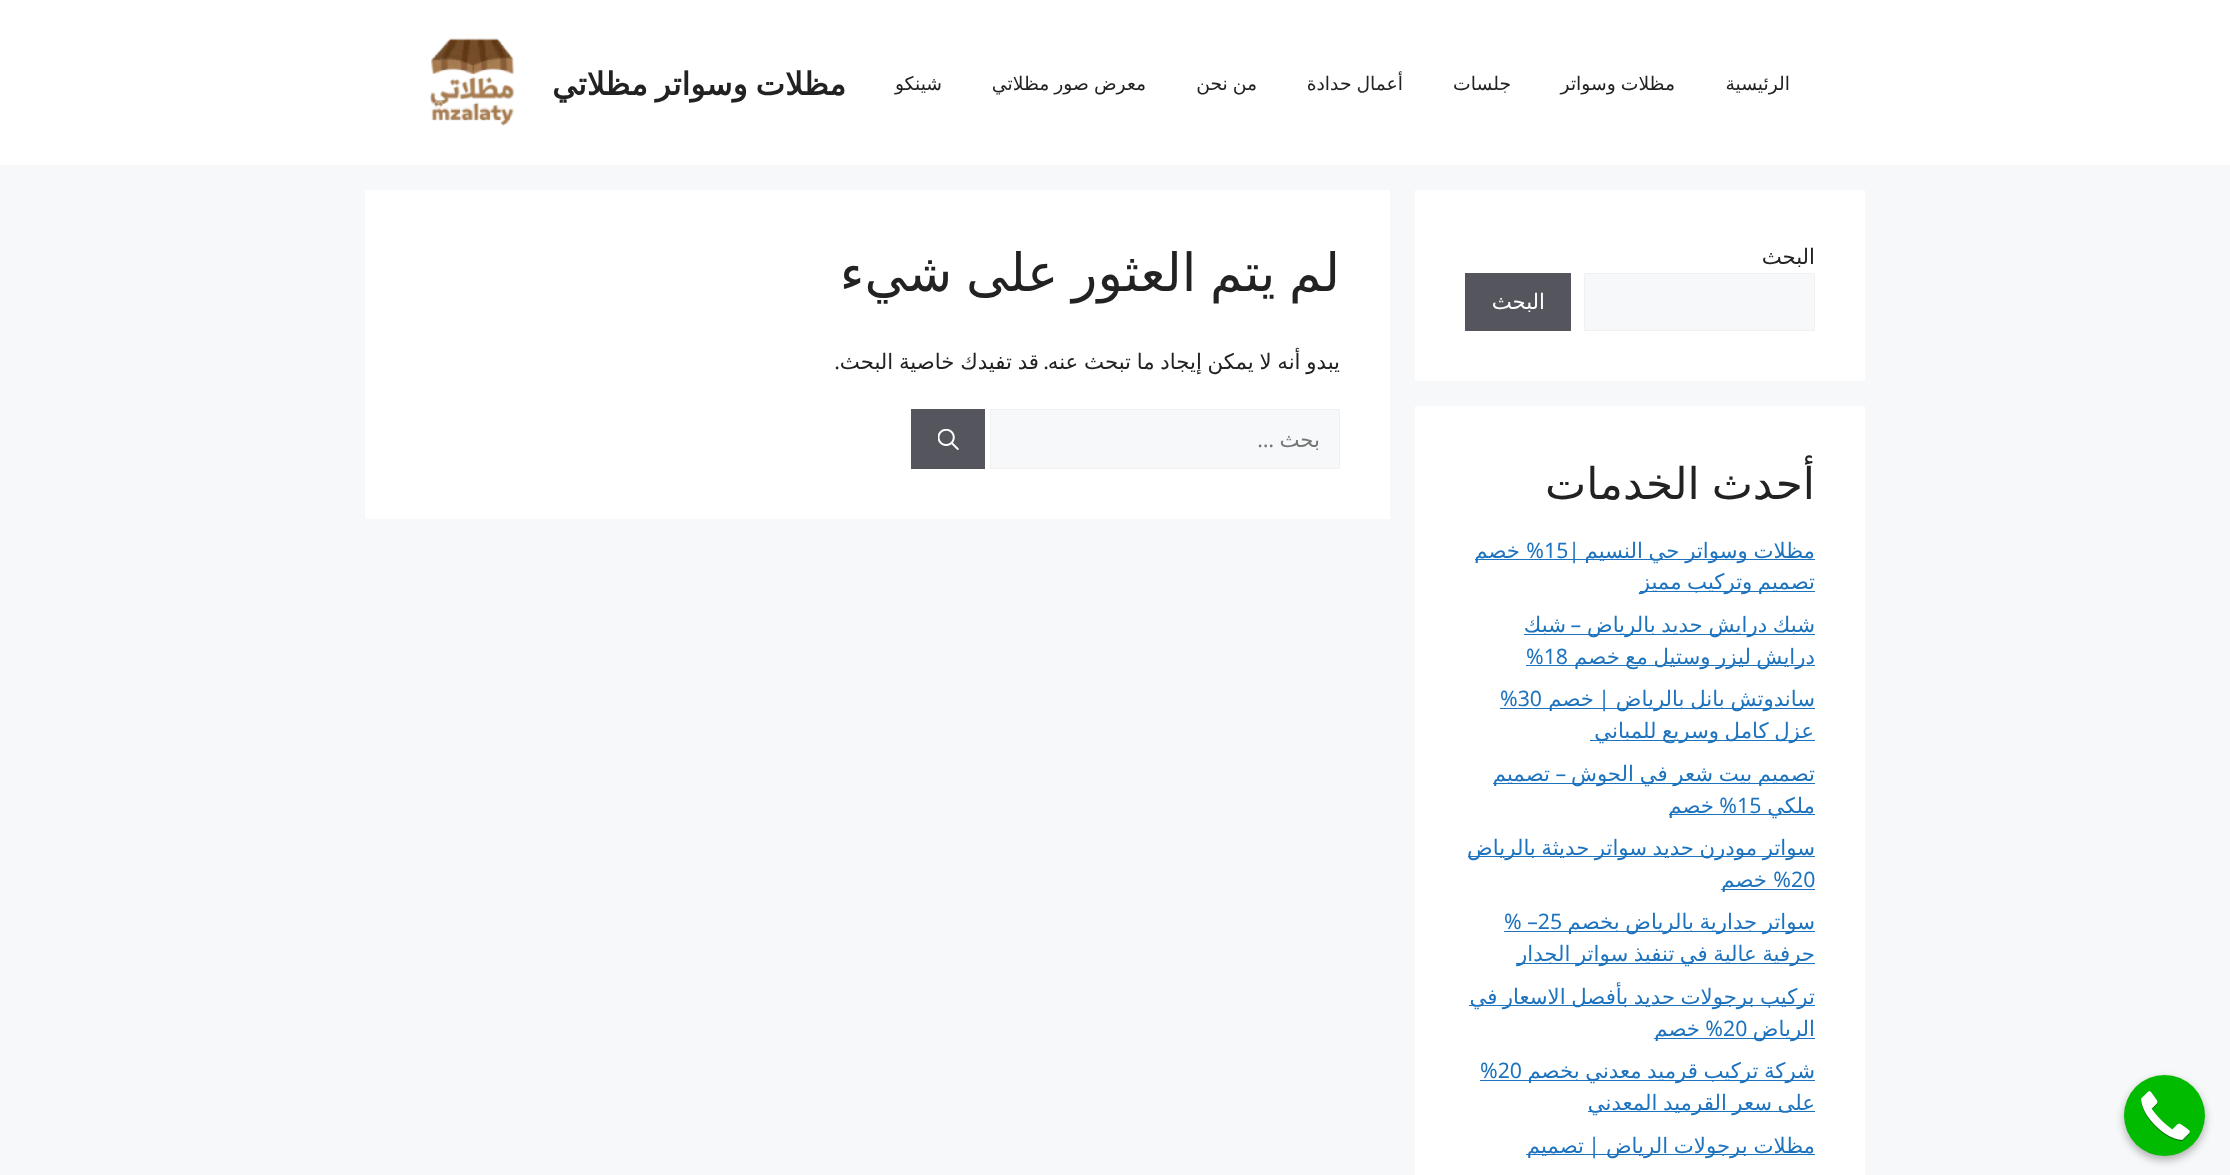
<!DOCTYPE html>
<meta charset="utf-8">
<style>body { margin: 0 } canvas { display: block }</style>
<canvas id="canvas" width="2230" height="1175"></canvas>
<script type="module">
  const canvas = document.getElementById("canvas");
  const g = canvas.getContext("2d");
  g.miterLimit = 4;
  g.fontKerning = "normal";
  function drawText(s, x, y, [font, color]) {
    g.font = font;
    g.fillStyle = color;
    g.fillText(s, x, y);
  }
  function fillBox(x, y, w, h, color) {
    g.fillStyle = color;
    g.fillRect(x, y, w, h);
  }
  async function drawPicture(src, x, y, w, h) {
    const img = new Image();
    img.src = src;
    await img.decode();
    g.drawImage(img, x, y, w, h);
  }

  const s1 = ["18.75px DejaVu Sans", "#222222"];
  const s2 = ["bold 31.25px DejaVu Sans", "#222222"];
  const s3 = ["21.25px DejaVu Sans", "#222222"];
  const s4 = ["21.25px DejaVu Sans", "#FFFFFF"];
  const s5 = ["43.75px DejaVu Sans", "#222222"];
  const s6 = ["21.25px DejaVu Sans", "#1E73BE"];
  const s7 = ["21.25px Noto Sans", "#1E73BE"];
  const s8 = ["52.5px DejaVu Sans", "#222222"];
  const s9 = ["21.25px Noto Sans", "#222222"];
  const s10 = ["21.25px DejaVu Sans", "#757575"];
  const s11 = ["21.25px Noto Sans", "#757575"];

  fillBox(0, 0, 2230, 1175, "#F7F8F9");
  fillBox(0, 0, 2230, 165, "#FFFFFF");
  g.direction = "rtl";
  drawText("الرئيسية", 1790, 90, s1);
  g.wordSpacing = "-1px";
  drawText("مظلات وسواتر", 1675, 90, s1);
  g.wordSpacing = "0px";
  drawText("جلسات", 1511, 90, s1);
  g.wordSpacing = "-1px";
  drawText("أعمال حدادة", 1403, 90, s1);
  drawText("من نحن", 1257, 90, s1);
  drawText("معرض صور مظلاتي", 1146, 90, s1);
  g.wordSpacing = "0px";
  drawText("شينكو", 942, 90, s1);
  g.wordSpacing = "-2px";
  drawText("مظلات وسواتر مظلاتي", 846, 95, s2);
  await drawPicture("pic1.png", 430, 38, 84, 88);
  g.fillStyle = "rgba(0, 0, 0, 0.3)";
  g.filter = "blur(4px)";
  g.beginPath();
  g.roundRect(2124, 1079, 81, 81, 40.5);
  g.fill();
  g.filter = "none";
  g.fillStyle = "#00BB00";
  g.beginPath();
  g.arc(2164.5, 1115.5, 40.5, 0, Math.PI * 2);
  g.fill();
  await drawPicture("pic2.png", 2141, 1091, 49, 50);
  fillBox(1415, 190, 450, 191, "#FFFFFF");
  g.wordSpacing = "0px";
  drawText("البحث", 1815, 264, s3);
  g.fillStyle = "#F7F8F9";
  g.beginPath();
  g.rect(1584.5, 273.5, 230, 57);
  g.fill();
  g.strokeStyle = "#F0F0F0";
  g.stroke();
  fillBox(1465, 273, 106, 58, "#55555E");
  drawText("البحث", 1545, 309, s4);
  fillBox(1415, 406, 450, 769, "#FFFFFF");
  g.wordSpacing = "-2px";
  drawText("أحدث الخدمات", 1815, 499, s5);
  fillBox(1475, 559, 340, 1, "#1E73BE");
  g.wordSpacing = "-1px";
  drawText("مظلات وسواتر حي النسيم", 1815, 558, s6);
  g.wordSpacing = "0px";
  drawText("|", 1580, 558, s7);
  g.direction = "ltr";
  drawText("15", 1544, 558, s7);
  g.direction = "rtl";
  drawText("%", 1544, 558, s7);
  drawText("خصم", 1520, 558, s6);
  fillBox(1640, 591, 175, 1, "#1E73BE");
  g.wordSpacing = "-1.25px";
  drawText("تصميم وتركيب مميز", 1815, 589, s6);
  fillBox(1524, 634, 291, 1, "#1E73BE");
  g.wordSpacing = "-1px";
  drawText("شبك درايش حديد بالرياض", 1815, 632, s6);
  g.wordSpacing = "0px";
  drawText("–", 1581, 632, s7);
  drawText("شبك", 1566, 632, s6);
  fillBox(1526, 665, 289, 1, "#1E73BE");
  g.wordSpacing = "-1.25px";
  drawText("درايش ليزر وستيل مع خصم", 1815, 664, s6);
  g.wordSpacing = "0px";
  g.direction = "ltr";
  drawText("%18", 1526, 664, s7);
  fillBox(1500, 708, 315, 1, "#1E73BE");
  g.wordSpacing = "-1px";
  g.direction = "rtl";
  drawText("ساندوتش بانل بالرياض", 1815, 706, s6);
  g.wordSpacing = "0px";
  drawText("|", 1610, 706, s7);
  drawText("خصم", 1594, 706, s6);
  g.direction = "ltr";
  drawText("%30", 1500, 706, s7);
  fillBox(1590, 740, 225, 1, "#1E73BE");
  g.wordSpacing = "-1.25px";
  g.direction = "rtl";
  drawText("عزل كامل وسريع للمباني", 1814, 738, s6);
  fillBox(1493, 783, 322, 1, "#1E73BE");
  g.wordSpacing = "-1px";
  drawText("تصميم بيت شعر في الحوش", 1815, 781, s6);
  g.wordSpacing = "0px";
  drawText("–", 1566, 781, s7);
  drawText("تصميم", 1550, 781, s6);
  fillBox(1669, 814, 146, 1, "#1E73BE");
  drawText("ملكي", 1815, 813, s6);
  g.direction = "ltr";
  drawText("15", 1737, 813, s7);
  g.direction = "rtl";
  drawText("%", 1737, 813, s7);
  drawText("خصم", 1714, 813, s6);
  fillBox(1468, 856, 347, 1, "#1E73BE");
  g.wordSpacing = "-1.25px";
  drawText("سواتر مودرن حديد سواتر حديثة بالرياض", 1815, 855, s6);
  g.wordSpacing = "0px";
  g.direction = "ltr";
  drawText("20", 1791, 887, s7);
  g.direction = "rtl";
  drawText("%", 1791, 887, s7);
  fillBox(1721, 889, 94, 1, "#1E73BE");
  drawText("خصم", 1767, 887, s6);
  fillBox(1504, 931, 311, 1, "#1E73BE");
  g.wordSpacing = "-1.25px";
  drawText("سواتر جدارية بالرياض بخصم", 1815, 929, s6);
  g.wordSpacing = "0px";
  g.direction = "ltr";
  drawText("% –25", 1504, 929, s7);
  fillBox(1516, 963, 299, 1, "#1E73BE");
  g.wordSpacing = "-1.25px";
  g.direction = "rtl";
  drawText("حرفية عالية في تنفيذ سواتر الجدار", 1815, 961, s6);
  fillBox(1469, 1005, 346, 1, "#1E73BE");
  drawText("تركيب برجولات حديد بأفصل الاسعار في", 1815, 1004, s6);
  fillBox(1654, 1038, 161, 1, "#1E73BE");
  g.wordSpacing = "0px";
  drawText("الرياض", 1815, 1036, s6);
  g.direction = "ltr";
  drawText("20", 1723, 1036, s7);
  g.direction = "rtl";
  drawText("%", 1723, 1036, s7);
  drawText("خصم", 1700, 1036, s6);
  fillBox(1480, 1080, 335, 1, "#1E73BE");
  g.wordSpacing = "-1.25px";
  drawText("شركة تركيب قرميد معدني بخصم", 1815, 1078, s6);
  g.wordSpacing = "0px";
  g.direction = "ltr";
  drawText("%20", 1480, 1078, s7);
  fillBox(1588, 1111, 227, 1, "#1E73BE");
  g.wordSpacing = "-1.25px";
  g.direction = "rtl";
  drawText("على سعر القرميد المعدني", 1815, 1110, s6);
  fillBox(1526, 1154, 289, 1, "#1E73BE");
  g.wordSpacing = "-1px";
  drawText("مظلات برجولات الرياض", 1815, 1153, s6);
  g.wordSpacing = "0px";
  drawText("|", 1600, 1153, s7);
  drawText("تصميم", 1584, 1153, s6);
  fillBox(365, 190, 1025, 329, "#FFFFFF");
  g.wordSpacing = "-3px";
  drawText("لم يتم العثور على شيء", 1340, 291, s8);
  g.wordSpacing = "-1px";
  drawText("يبدو أنه لا يمكن إيجاد ما تبحث عنه", 1340, 369, s3);
  g.wordSpacing = "0px";
  drawText(".", 1049, 369, s9);
  g.wordSpacing = "-1px";
  drawText("قد تفيدك خاصية البحث", 1039, 369, s3);
  g.wordSpacing = "0px";
  drawText(".", 840, 369, s9);
  g.fillStyle = "#F7F8F9";
  g.beginPath();
  g.rect(990.5, 409.5, 349, 59);
  g.fill();
  g.stroke();
  drawText("بحث", 1320, 447, s10);
  drawText("…", 1274, 447, s11);
  fillBox(911, 409, 74, 60, "#55555E");
  await drawPicture("pic3.png", 938, 429, 21, 21);
</script>
